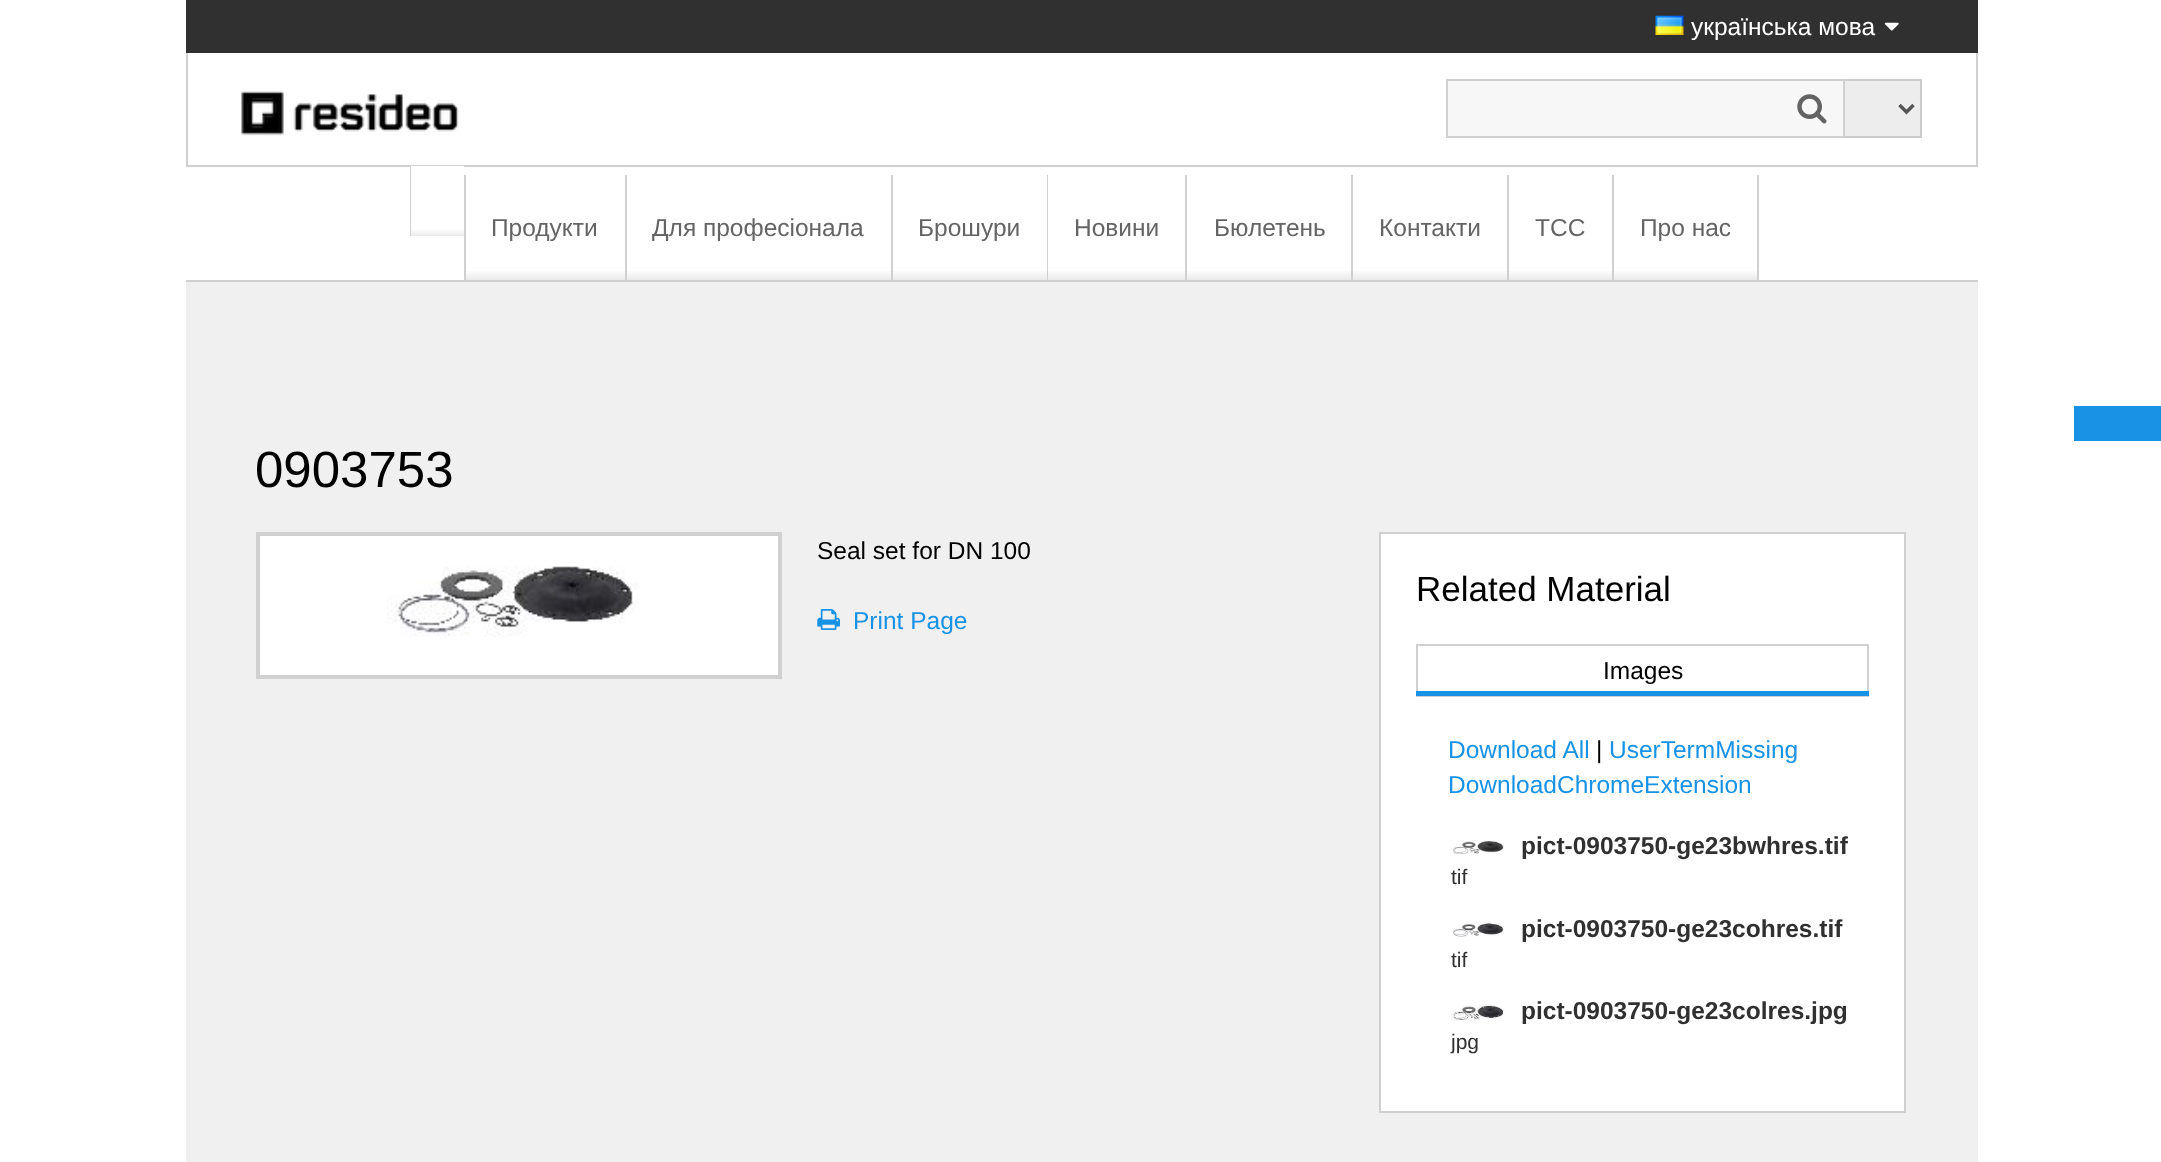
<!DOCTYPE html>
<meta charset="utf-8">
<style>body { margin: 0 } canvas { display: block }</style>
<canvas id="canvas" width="2161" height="1162"></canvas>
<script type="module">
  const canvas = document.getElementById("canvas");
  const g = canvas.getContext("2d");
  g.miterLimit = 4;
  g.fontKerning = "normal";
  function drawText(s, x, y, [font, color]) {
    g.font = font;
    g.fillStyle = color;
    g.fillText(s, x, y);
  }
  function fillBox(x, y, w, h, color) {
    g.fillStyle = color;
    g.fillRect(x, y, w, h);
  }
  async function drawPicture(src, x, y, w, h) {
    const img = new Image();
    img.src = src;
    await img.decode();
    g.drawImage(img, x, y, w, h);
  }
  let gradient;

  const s1 = ["24.5px Liberation Sans", "#FFFFFF"];
  const s2 = ["24.5px Liberation Sans", "#646464"];
  const s3 = ["51px Liberation Sans", "#000000"];
  const s4 = ["24.5px Liberation Sans", "#000000"];
  const s5 = ["24.5px Liberation Sans", "#1792E5"];
  const s6 = ["35px Liberation Sans", "#000000"];
  const s7 = ["bold 24.5px Liberation Sans", "#303030"];
  const s8 = ["21px Liberation Sans", "#303030"];

  fillBox(0, 0, 2161, 1162, "#FFFFFF");
  fillBox(186, 0, 1792, 53, "#303030");
  await drawPicture("pic1.png", 1655, 15, 29, 20);
  drawText("українська мова", 1691, 35, s1);
  await drawPicture("pic2.png", 1884, 22, 15, 9);
  fillBox(1976, 53, 2, 113, "#D0D0D0");
  fillBox(186, 165, 1792, 2, "#D0D0D0");
  fillBox(186, 53, 2, 113, "#D0D0D0");
  await drawPicture("pic3.png", 241, 91, 218, 45);
  fillBox(1845, 81, 75, 55, "#EDEDED");
  g.strokeStyle = "#CCCCCC";
  g.lineWidth = 2;
  g.strokeRect(1842, 80, 79, 57);
  g.fillStyle = "#F7F7F7";
  g.beginPath();
  g.rect(1447, 80, 397, 57);
  g.fill();
  g.strokeStyle = "#D0D0D0";
  g.stroke();
  await drawPicture("pic4.png", 1797, 94, 30, 30);
  g.beginPath();
  g.moveTo(1899.5, 105);
  g.lineTo(1906.5, 112);
  g.lineTo(1913.5, 105);
  g.strokeStyle = "#555555";
  g.lineWidth = 3.5;
  g.stroke();
  fillBox(410, 166, 1, 70, "#D0D0D0");
  gradient = g.createLinearGradient(438, 166, 438, 236);
  gradient.addColorStop(0, "#FFFFFF");
  gradient.addColorStop(0.9, "#FFFFFF");
  gradient.addColorStop(1, "#EAEAEA");
  g.fillStyle = gradient;
  g.fillRect(411, 166, 53, 70);
  fillBox(464, 175, 2, 105, "#D0D0D0");
  gradient = g.createLinearGradient(545, 175, 545, 280);
  gradient.addColorStop(0, "#FFFFFF");
  gradient.addColorStop(0.9, "#FFFFFF");
  gradient.addColorStop(1, "#EAEAEA");
  g.fillStyle = gradient;
  g.fillRect(466, 271, 159, 9);
  drawText("Продукти", 491, 236, s2);
  fillBox(625, 175, 2, 105, "#D0D0D0");
  gradient = g.createLinearGradient(759, 175, 759, 280);
  gradient.addColorStop(0, "#FFFFFF");
  gradient.addColorStop(0.9, "#FFFFFF");
  gradient.addColorStop(1, "#EAEAEA");
  g.fillStyle = gradient;
  g.fillRect(627, 271, 264, 9);
  drawText("Для професіонала", 652, 236, s2);
  fillBox(891, 175, 2, 105, "#D0D0D0");
  gradient = g.createLinearGradient(970, 175, 970, 280);
  gradient.addColorStop(0, "#FFFFFF");
  gradient.addColorStop(0.9, "#FFFFFF");
  gradient.addColorStop(1, "#EAEAEA");
  g.fillStyle = gradient;
  g.fillRect(893, 271, 154, 9);
  drawText("Брошури", 918, 236, s2);
  fillBox(1047, 175, 1, 105, "#D0D0D0");
  gradient = g.createLinearGradient(1117, 175, 1117, 280);
  gradient.addColorStop(0, "#FFFFFF");
  gradient.addColorStop(0.9, "#FFFFFF");
  gradient.addColorStop(1, "#EAEAEA");
  g.fillStyle = gradient;
  g.fillRect(1048, 271, 137, 9);
  drawText("Новини", 1074, 236, s2);
  fillBox(1185, 175, 2, 105, "#D0D0D0");
  gradient = g.createLinearGradient(1269, 175, 1269, 280);
  gradient.addColorStop(0, "#FFFFFF");
  gradient.addColorStop(0.9, "#FFFFFF");
  gradient.addColorStop(1, "#EAEAEA");
  g.fillStyle = gradient;
  g.fillRect(1187, 271, 164, 9);
  drawText("Бюлетень", 1214, 236, s2);
  fillBox(1351, 175, 2, 105, "#D0D0D0");
  gradient = g.createLinearGradient(1431, 175, 1431, 280);
  gradient.addColorStop(0, "#FFFFFF");
  gradient.addColorStop(0.9, "#FFFFFF");
  gradient.addColorStop(1, "#EAEAEA");
  g.fillStyle = gradient;
  g.fillRect(1353, 271, 154, 9);
  drawText("Контакти", 1379, 236, s2);
  fillBox(1507, 175, 2, 105, "#D0D0D0");
  gradient = g.createLinearGradient(1560, 175, 1560, 280);
  gradient.addColorStop(0, "#FFFFFF");
  gradient.addColorStop(0.9, "#FFFFFF");
  gradient.addColorStop(1, "#EAEAEA");
  g.fillStyle = gradient;
  g.fillRect(1509, 271, 103, 9);
  drawText("TCC", 1535, 236, s2);
  fillBox(1757, 175, 2, 105, "#D0D0D0");
  fillBox(1612, 175, 2, 105, "#D0D0D0");
  gradient = g.createLinearGradient(1685, 175, 1685, 280);
  gradient.addColorStop(0, "#FFFFFF");
  gradient.addColorStop(0.9, "#FFFFFF");
  gradient.addColorStop(1, "#EAEAEA");
  g.fillStyle = gradient;
  g.fillRect(1614, 271, 143, 9);
  drawText("Про нас", 1640, 236, s2);
  fillBox(2074, 406, 87, 35, "#1792E5");
  fillBox(186, 282, 1792, 880, "#F0F0F0");
  fillBox(186, 280, 1792, 2, "#D0D0D0");
  drawText("0903753", 255, 487, s3);
  g.fillStyle = "#FFFFFF";
  g.beginPath();
  g.rect(258, 534, 522, 143);
  g.fill();
  g.strokeStyle = "#D0D0D0";
  g.lineWidth = 4;
  g.stroke();
  await drawPicture("pic5.png", 387, 566, 252, 71);
  drawText("Seal set for DN 100", 817, 559, s4);
  await drawPicture("pic6.png", 817, 609, 23, 21);
  drawText("Print Page", 853, 629, s5);
  g.fillStyle = "#FFFFFF";
  g.beginPath();
  g.rect(1380, 533, 525, 579);
  g.fill();
  g.lineWidth = 2;
  g.stroke();
  drawText("Related Material", 1416, 601, s6);
  g.strokeRect(1417, 645, 451, 51);
  drawText("Images", 1603, 679, s4);
  fillBox(1416, 691, 453, 5, "#1792E5");
  drawText("Download All", 1448, 758, s5);
  drawText("|", 1596, 758, s4);
  drawText("UserTermMissing", 1609, 758, s5);
  drawText("DownloadChromeExtension", 1448, 793, s5);
  await drawPicture("pic7.png", 1452, 841, 52, 14);
  drawText("pict-0903750-ge23bwhres.tif", 1521, 854, s7);
  drawText("tif", 1451, 884, s8);
  await drawPicture("pic8.png", 1452, 923, 52, 14);
  drawText("pict-0903750-ge23cohres.tif", 1521, 937, s7);
  drawText("tif", 1451, 967, s8);
  await drawPicture("pic9.png", 1451, 1005, 54, 16);
  drawText("pict-0903750-ge23colres.jpg", 1521, 1019, s7);
  drawText("jpg", 1451, 1049, s8);
</script>
